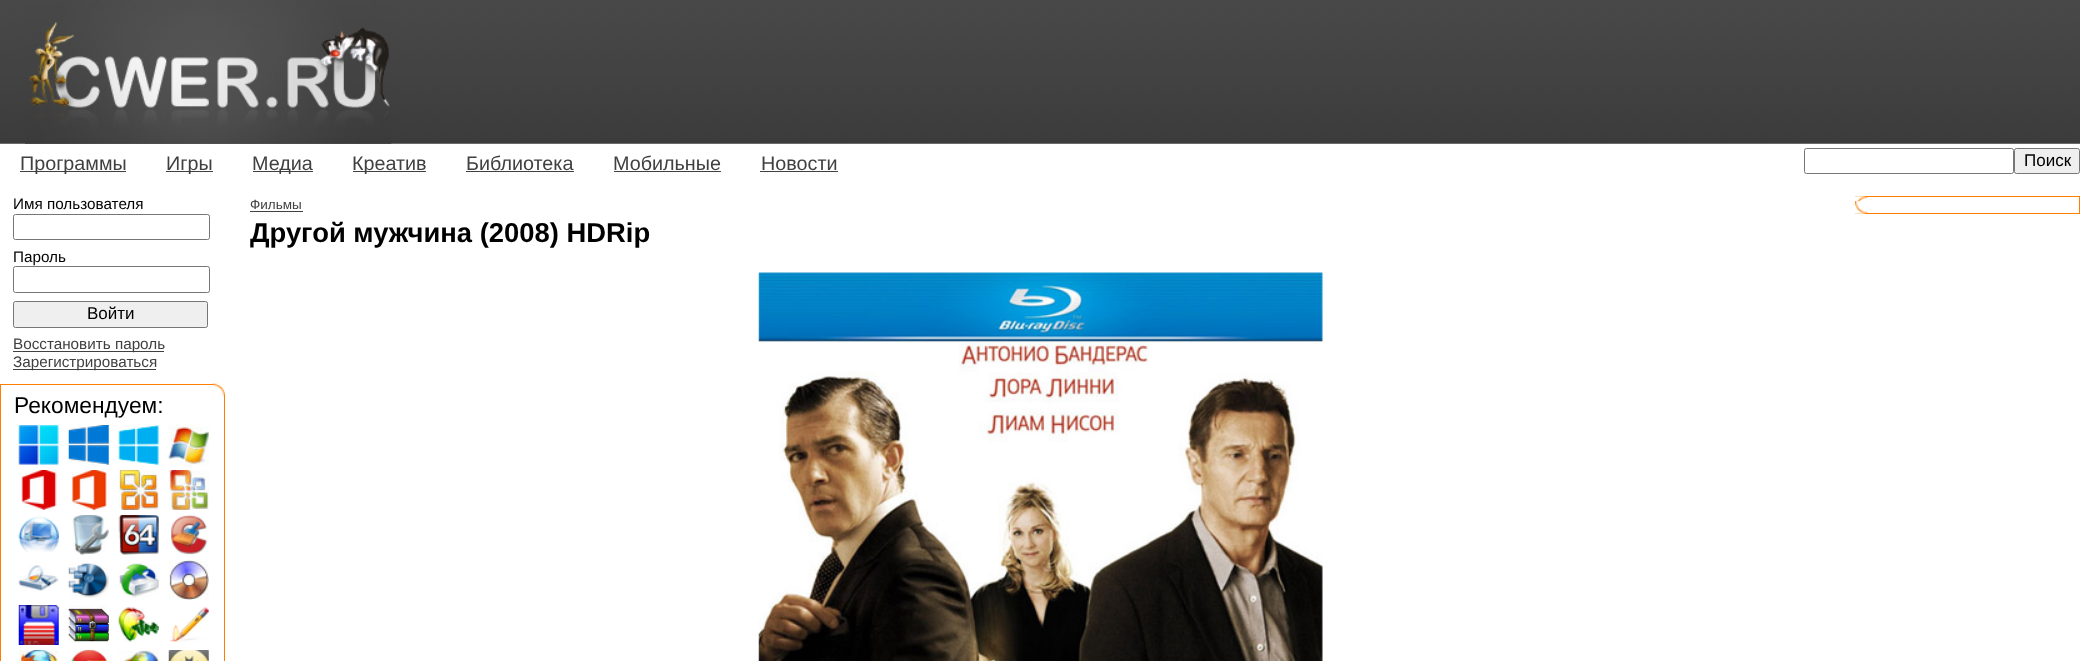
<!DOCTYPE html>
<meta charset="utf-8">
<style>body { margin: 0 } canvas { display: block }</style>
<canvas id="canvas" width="2080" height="661"></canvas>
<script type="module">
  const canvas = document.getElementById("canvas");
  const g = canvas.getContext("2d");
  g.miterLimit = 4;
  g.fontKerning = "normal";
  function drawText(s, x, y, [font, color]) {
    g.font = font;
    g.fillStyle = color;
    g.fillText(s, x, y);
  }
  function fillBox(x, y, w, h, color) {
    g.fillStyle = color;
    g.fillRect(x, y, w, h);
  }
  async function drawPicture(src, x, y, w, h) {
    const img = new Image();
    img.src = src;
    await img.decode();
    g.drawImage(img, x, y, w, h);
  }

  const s1 = ["19.75px Liberation Sans", "#404040"];
  const s2 = ["17px Liberation Sans", "#000000"];
  const s3 = ["15.25px Liberation Sans", "#000000"];
  const s4 = ["15.25px Liberation Sans", "#404040"];
  const s5 = ["22.75px Liberation Sans", "#000000"];
  const s6 = ["13.5px Liberation Sans", "#404040"];
  const s7 = ["bold 27.4px Liberation Sans", "#000000"];

  fillBox(0, 0, 2080, 661, "#FFFFFF");
  await drawPicture("pic1.png", 0, 0, 2080, 144);
  await drawPicture("pic2.png", 25, 0, 367, 144);
  fillBox(20, 171, 106, 1, "#404040");
  drawText("Программы", 20, 170, s1);
  fillBox(166, 171, 47, 1, "#404040");
  drawText("Игры", 166, 170, s1);
  fillBox(253, 171, 60, 1, "#404040");
  drawText("Медиа", 252, 170, s1);
  fillBox(353, 171, 73, 1, "#404040");
  drawText("Креатив", 352, 170, s1);
  drawText("Библиотека", 466, 170, s1);
  fillBox(466, 171, 108, 1, "#404040");
  drawText("Мобильные", 613, 170, s1);
  fillBox(614, 171, 107, 1, "#404040");
  drawText("Новости", 761, 170, s1);
  fillBox(760, 171, 78, 1, "#404040");
  g.beginPath();
  g.roundRect(1804.5, 148.5, 209, 25, 2);
  g.strokeStyle = "#767676";
  g.stroke();
  g.fillStyle = "#EFEFEF";
  g.beginPath();
  g.roundRect(2014.5, 148.5, 65, 25, 2);
  g.fill();
  g.stroke();
  drawText("Поиск", 2024, 166, s2);
  drawText("Имя пользователя", 13, 209, s3);
  g.beginPath();
  g.roundRect(13.5, 214.5, 196, 25, 2);
  g.stroke();
  drawText("Пароль", 13, 262, s3);
  g.beginPath();
  g.roundRect(13.5, 266.5, 196, 26, 2);
  g.stroke();
  g.fillStyle = "#EFEFEF";
  g.beginPath();
  g.roundRect(13.5, 301.5, 194, 26, 2);
  g.fill();
  g.stroke();
  drawText("Войти", 87, 319, s2);
  fillBox(13, 351, 151, 1, "#404040");
  drawText("Восстановить пароль", 13, 349, s4);
  fillBox(13, 369, 143, 1, "#404040");
  drawText("Зарегистрироваться", 13, 367, s4);
  g.strokeStyle = "#FF7E00";
  g.strokeRect(0.5, 384.5, 224, 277);
  await drawPicture("pic3.png", 212, 383, 13, 14);
  drawText("Рекомендуем:", 14, 413, s5);
  await drawPicture("pic4.png", 18, 425, 41, 40);
  await drawPicture("pic5.png", 68, 425, 41, 40);
  await drawPicture("pic6.png", 118, 425, 41, 40);
  await drawPicture("pic7.png", 168, 425, 41, 40);
  await drawPicture("pic8.png", 21, 470, 36, 40);
  await drawPicture("pic9.png", 71, 470, 36, 40);
  await drawPicture("pic10.png", 118, 470, 41, 40);
  await drawPicture("pic11.png", 169, 470, 40, 40);
  await drawPicture("pic12.png", 18, 516, 41, 37);
  await drawPicture("pic13.png", 72, 515, 37, 40);
  await drawPicture("pic14.png", 118, 515, 41, 40);
  await drawPicture("pic15.png", 171, 515, 37, 40);
  await drawPicture("pic16.png", 18, 565, 41, 26);
  await drawPicture("pic17.png", 68, 562, 41, 36);
  await drawPicture("pic18.png", 118, 563, 41, 35);
  await drawPicture("pic19.png", 168, 560, 41, 40);
  await drawPicture("pic20.png", 18, 605, 41, 40);
  await drawPicture("pic21.png", 68, 605, 41, 38);
  await drawPicture("pic22.png", 118, 607, 41, 35);
  await drawPicture("pic23.png", 170, 607, 39, 36);
  await drawPicture("pic24.png", 18, 650, 41, 11);
  await drawPicture("pic25.png", 69, 650, 39, 11);
  await drawPicture("pic26.png", 119, 650, 40, 11);
  await drawPicture("pic27.png", 168, 650, 41, 11);
  drawText("Фильмы", 250, 209, s6);
  fillBox(250, 211, 53, 1, "#404040");
  drawText("Другой мужчина (2008) HDRip", 250, 242, s7);
  await drawPicture("pic28.png", 758, 272, 565, 389);
  g.strokeRect(1855.5, 196.5, 224, 17);
  await drawPicture("pic29.png", 1855, 196, 13, 13);
  await drawPicture("pic30.png", 1855, 201, 13, 13);
</script>
